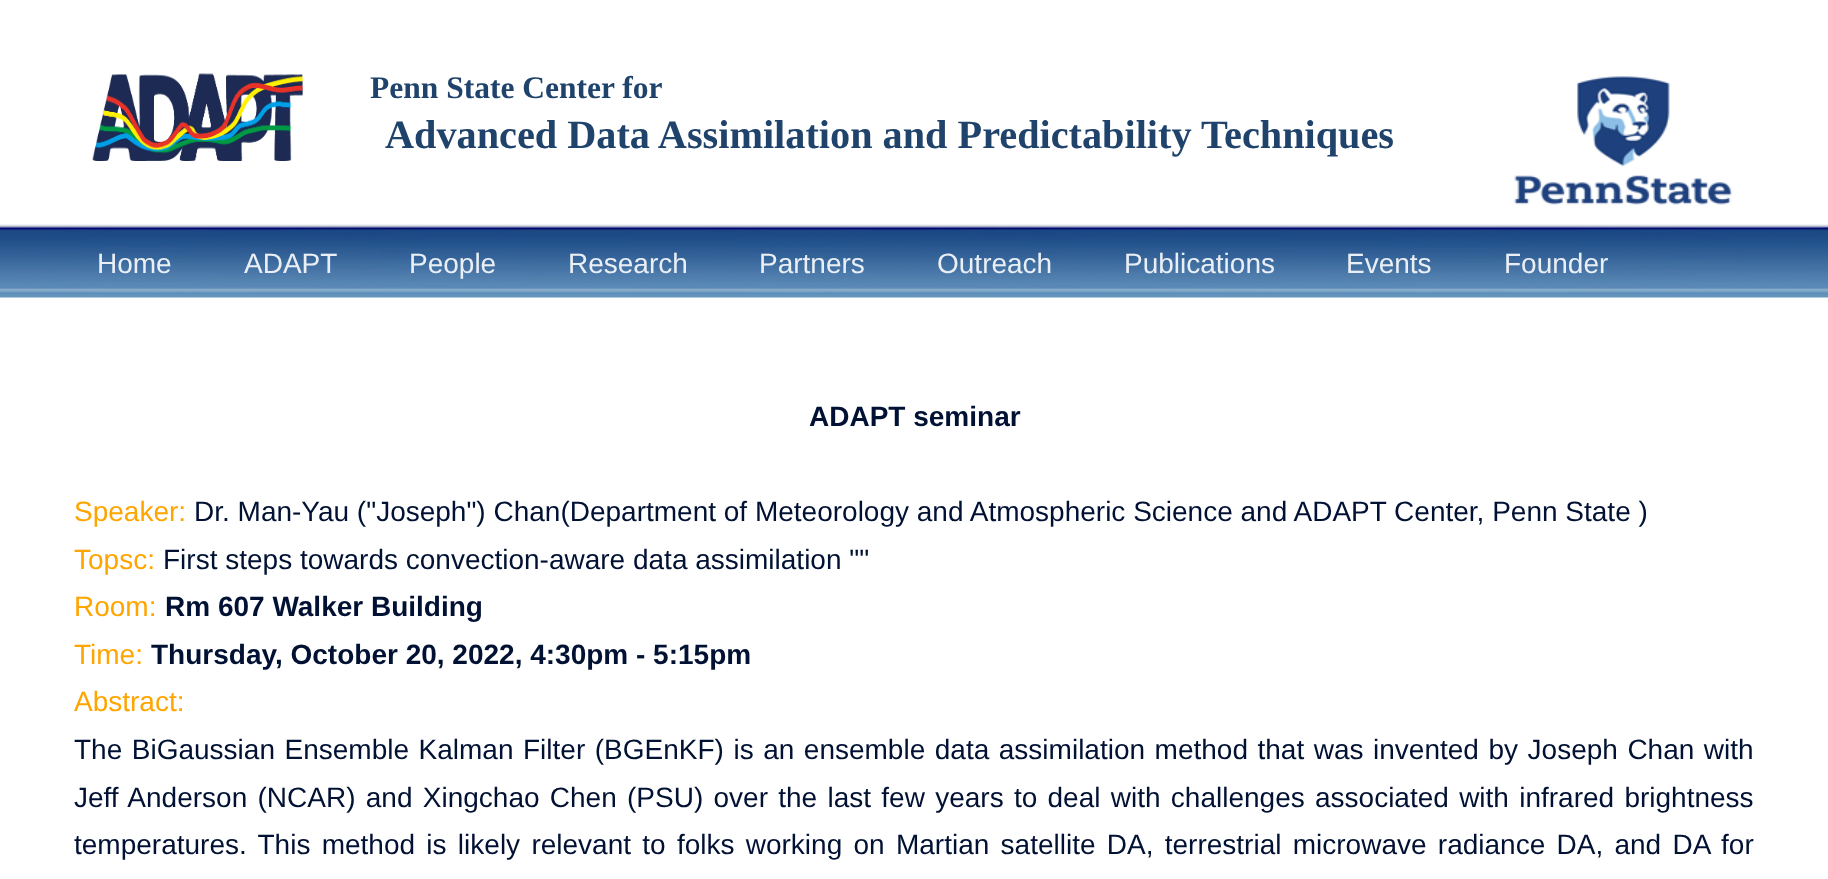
<!DOCTYPE html>
<meta charset="utf-8">
<style>body { margin: 0 } canvas { display: block }</style>
<canvas id="canvas" width="1828" height="879"></canvas>
<script type="module">
  const canvas = document.getElementById("canvas");
  const g = canvas.getContext("2d");
  g.miterLimit = 4;
  g.fontKerning = "normal";
  function drawText(s, x, y, [font, color]) {
    g.font = font;
    g.fillStyle = color;
    g.fillText(s, x, y);
  }
  function fillBox(x, y, w, h, color) {
    g.fillStyle = color;
    g.fillRect(x, y, w, h);
  }
  async function drawPicture(src, x, y, w, h) {
    const img = new Image();
    img.src = src;
    await img.decode();
    g.drawImage(img, x, y, w, h);
  }

  const s1 = ["bold 31.5px Liberation Serif", "#20436C"];
  const s2 = ["bold 40.25px Liberation Serif", "#20436C"];
  const s3 = ["28px Liberation Sans", "#EAEFF5"];
  const s4 = ["bold 28px Liberation Sans", "#001133"];
  const s5 = ["28px Liberation Sans", "#FFA500"];
  const s6 = ["28px Liberation Sans", "#001133"];

  fillBox(0, 0, 1828, 879, "#FFFFFF");
  await drawPicture("pic1.png", 0, 224, 1828, 74);
  await drawPicture("pic2.png", 92, 73, 211, 88);
  drawText("Penn State Center for", 370, 98, s1);
  await drawPicture("pic3.png", 1514, 76, 219, 129);
  drawText("Advanced Data Assimilation and Predictability Techniques", 385, 148, s2);
  drawText("Home", 97, 273, s3);
  drawText("ADAPT", 244, 273, s3);
  drawText("People", 409, 273, s3);
  drawText("Research", 568, 273, s3);
  drawText("Partners", 759, 273, s3);
  drawText("Outreach", 937, 273, s3);
  drawText("Publications", 1124, 273, s3);
  drawText("Events", 1346, 273, s3);
  drawText("Founder", 1504, 273, s3);
  drawText("ADAPT seminar", 809, 426, s4);
  drawText("Speaker:", 74, 521, s5);
  drawText("Dr. Man-Yau (\"Joseph\") Chan(Department of Meteorology and Atmospheric Science and ADAPT Center, Penn State )", 194, 521, s6);
  drawText("Topsc:", 74, 569, s5);
  drawText("First steps towards convection-aware data assimilation \"\"", 163, 569, s6);
  drawText("Room:", 74, 616, s5);
  drawText("Rm 607 Walker Building", 165, 616, s4);
  drawText("Time:", 74, 664, s5);
  drawText("Thursday, October 20, 2022, 4:30pm - 5:15pm", 151, 664, s4);
  drawText("Abstract:", 74, 711, s5);
  g.wordSpacing = "1.75px";
  drawText("The BiGaussian Ensemble Kalman Filter (BGEnKF) is an ensemble data assimilation method that was invented by Joseph Chan with", 74, 759, s6);
  g.wordSpacing = "2.5px";
  drawText("Jeff Anderson (NCAR) and Xingchao Chen (PSU) over the last few years to deal with challenges associated with infrared brightness", 74, 807, s6);
  g.wordSpacing = "3.5px";
  drawText("temperatures. This method is likely relevant to folks working on Martian satellite DA, terrestrial microwave radiance DA, and DA for", 74, 854, s6);
</script>
